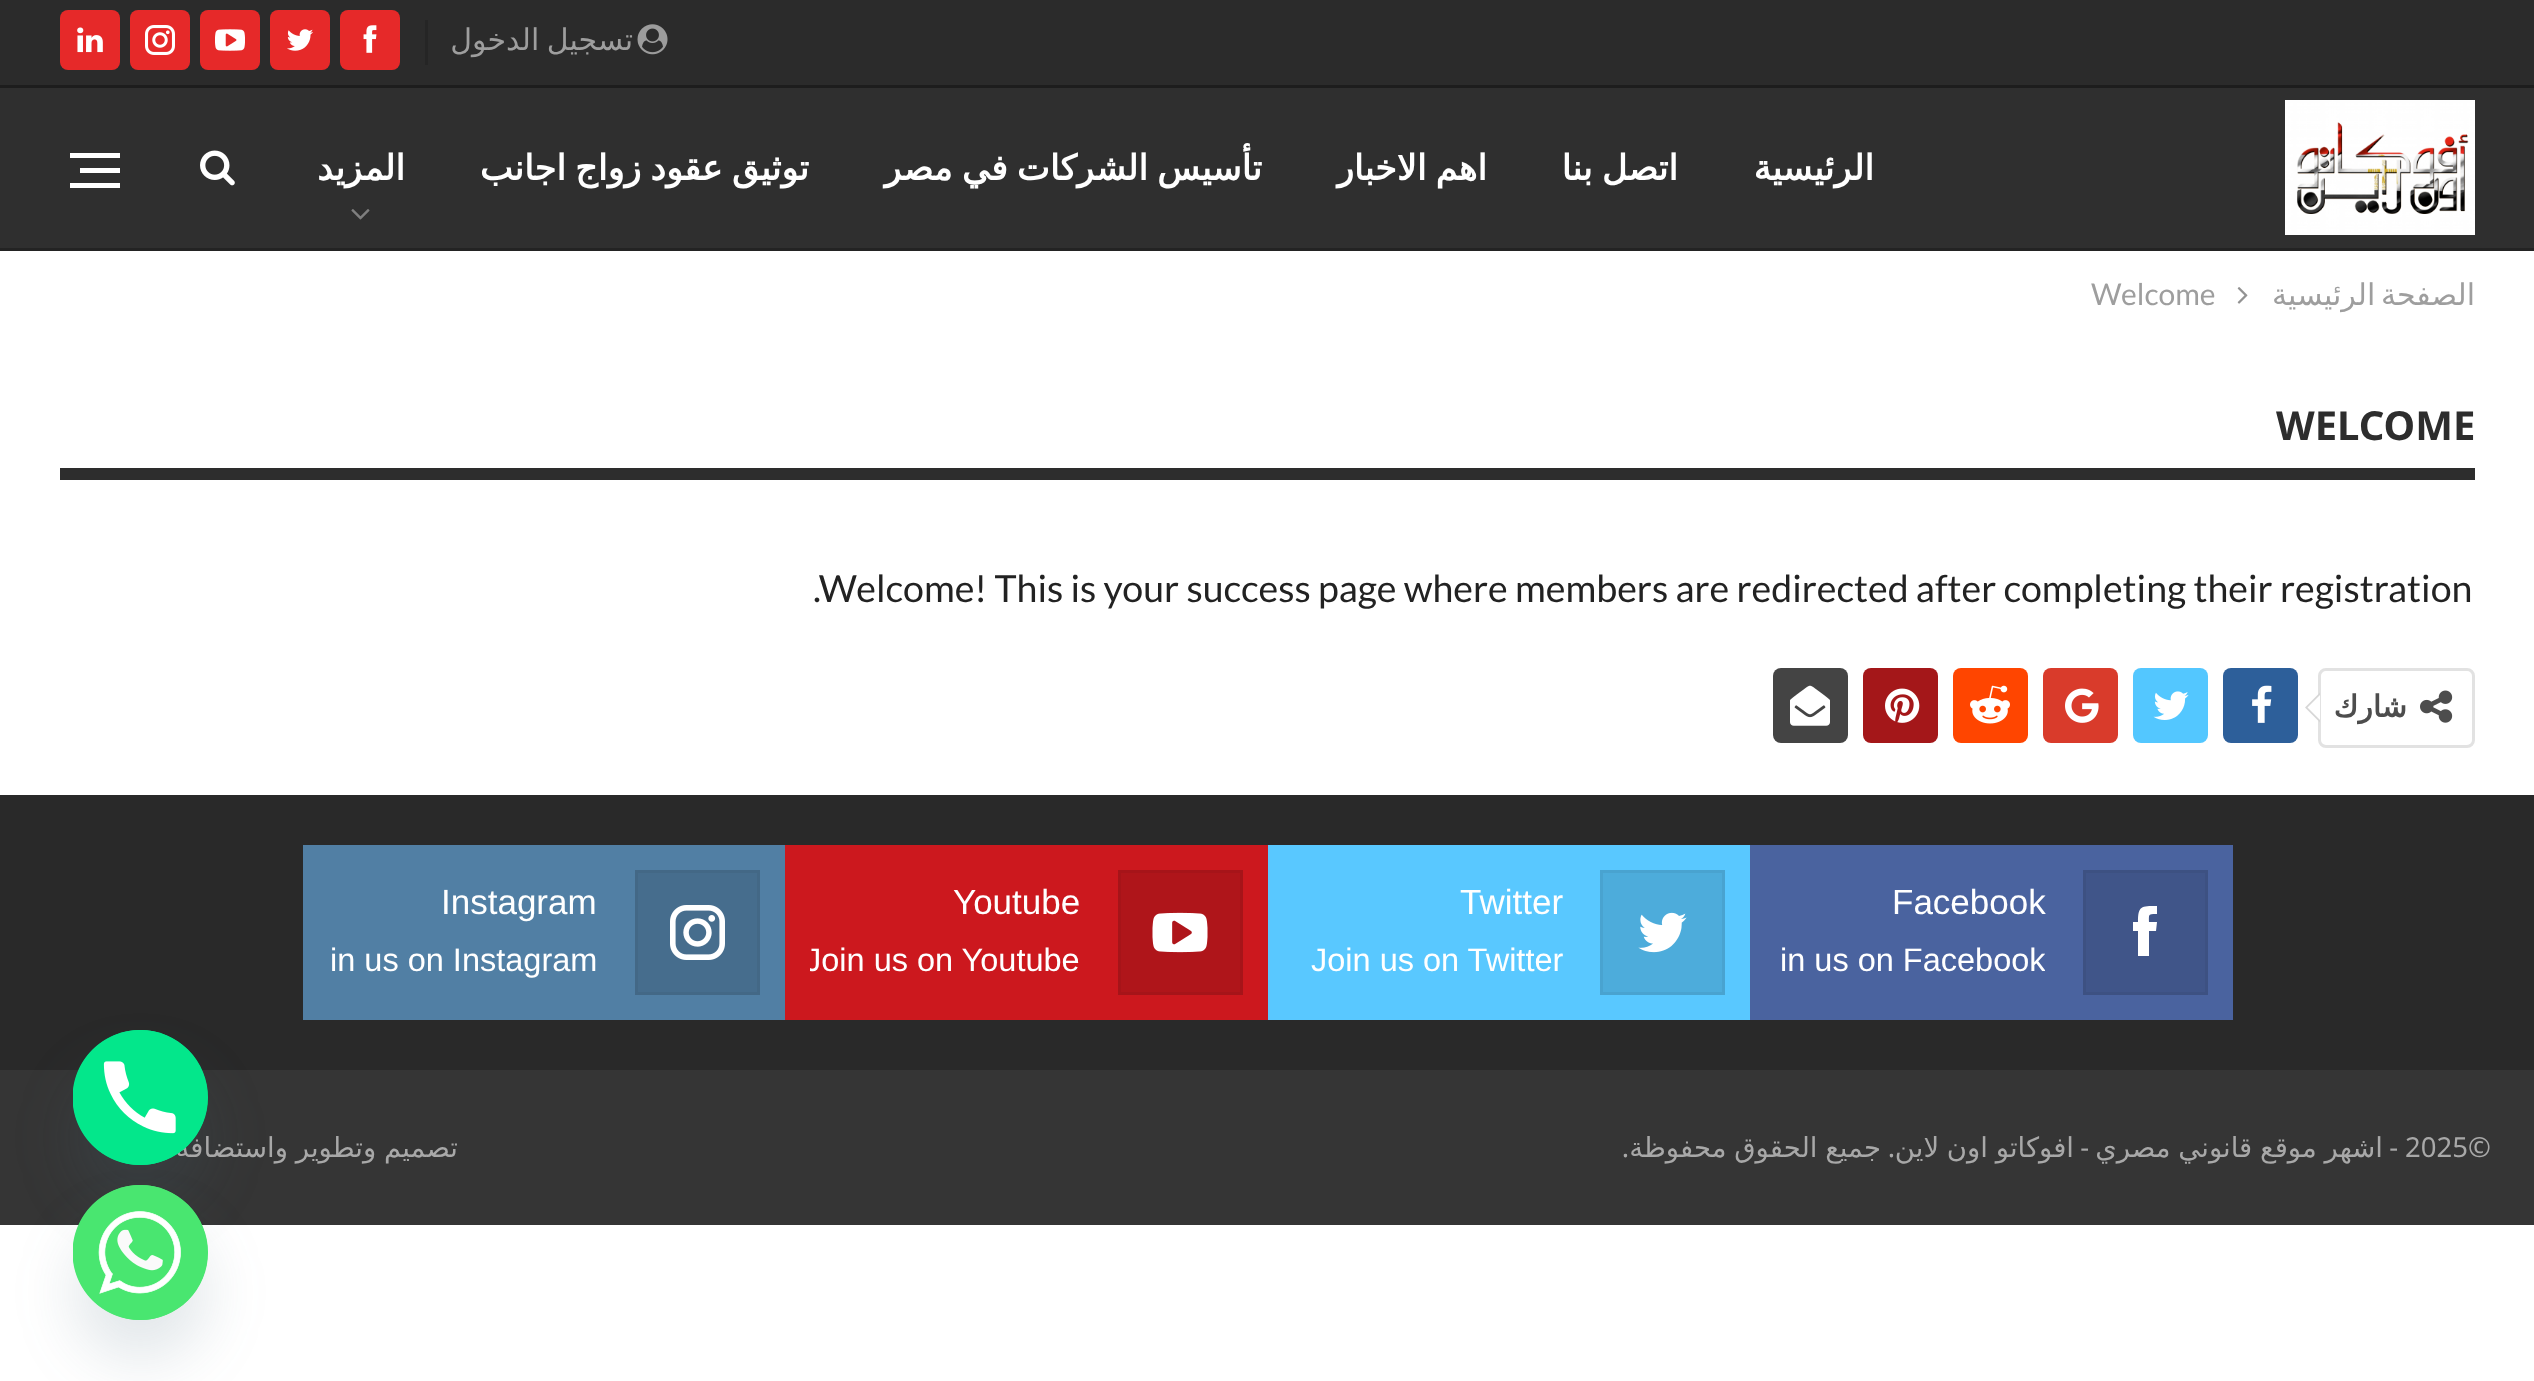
<!DOCTYPE html>
<meta charset="utf-8">
<style>body { margin: 0 } canvas { display: block }</style>
<canvas id="canvas" width="2534" height="1381"></canvas>
<script type="module">
  const canvas = document.getElementById("canvas");
  const g = canvas.getContext("2d");
  g.miterLimit = 4;
  g.fontKerning = "normal";
  function drawText(s, x, y, [font, color]) {
    g.font = font;
    g.fillStyle = color;
    g.fillText(s, x, y);
  }
  function fillBox(x, y, w, h, color) {
    g.fillStyle = color;
    g.fillRect(x, y, w, h);
  }
  function fillRounded(x, y, w, h, r, color) {
    g.fillStyle = color;
    g.beginPath();
    g.roundRect(x, y, w, h, r);
    g.fill();
  }
  async function drawPicture(src, x, y, w, h) {
    const img = new Image();
    img.src = src;
    await img.decode();
    g.drawImage(img, x, y, w, h);
  }

  const s1 = ["27.5px DejaVu Sans", "#A8A8A8"];
  const s2 = ["30px DejaVu Sans", "#9E9E9E"];
  const s3 = ["bold 35px DejaVu Sans", "#FFFFFF"];
  const s4 = ["30px Lato", "#9E9E9E"];
  const s5 = ["bold 40px Noto Sans", "#2D2D2D"];
  const s6 = ["37.5px Lato", "#222222"];
  const s7 = ["bold 30px DejaVu Sans", "#4D4D4D"];
  const s8 = ["35px Liberation Sans", "#FFFFFF"];
  const s9 = ["32.5px Liberation Sans", "#FFFFFF"];
  const s10 = ["27.5px Noto Sans", "#A8A8A8"];

  fillBox(0, 0, 2534, 1381, "#FFFFFF");
  fillBox(0, 795, 2534, 275, "#292929");
  fillBox(0, 1070, 2534, 155, "#353535");
  g.fillStyle = "rgba(73, 104, 126, 0.16)";
  g.filter = "blur(30px)";
  g.beginPath();
  g.roundRect(73, 1070, 135, 135, 67.5);
  g.fill();
  g.filter = "none";
  g.wordSpacing = "-1px";
  g.direction = "rtl";
  drawText("تصميم وتطوير واستضافة", 458, 1157, s1);
  g.fillStyle = "#03E78B";
  g.beginPath();
  g.arc(140.5, 1097.5, 67.5, 0, Math.PI * 2);
  g.fill();
  await drawPicture("pic1.png", 73, 1030, 135, 135);
  g.fillStyle = "rgba(73, 104, 126, 0.16)";
  g.filter = "blur(30px)";
  g.beginPath();
  g.roundRect(73, 1225, 135, 135, 67.5);
  g.fill();
  g.filter = "none";
  g.fillStyle = "#49E670";
  g.beginPath();
  g.arc(140.5, 1252.5, 67.5, 0, Math.PI * 2);
  g.fill();
  await drawPicture("pic2.png", 73, 1185, 135, 135);
  fillBox(0, 88, 2534, 160, "#2F2F2F");
  fillBox(0, 248, 2534, 3, "#232323");
  fillBox(0, 0, 2534, 85, "#2B2B2B");
  fillBox(0, 85, 2534, 3, "#1D1D1D");
  fillRounded(60, 10, 60, 60, 8, "#E62929");
  await drawPicture("pic3.png", 77, 27, 26, 26);
  fillRounded(130, 10, 60, 60, 8, "#E62929");
  await drawPicture("pic4.png", 145, 25, 30, 30);
  fillRounded(200, 10, 60, 60, 8, "#E62929");
  await drawPicture("pic5.png", 215, 29, 30, 22);
  fillRounded(270, 10, 60, 60, 8, "#E62929");
  await drawPicture("pic6.png", 287, 29, 26, 22);
  fillRounded(340, 10, 60, 60, 8, "#E62929");
  await drawPicture("pic7.png", 363, 25, 14, 28);
  fillBox(425, 20, 3, 45, "#252525");
  g.wordSpacing = "-2px";
  drawText("تسجيل الدخول", 633, 50, s2);
  await drawPicture("pic8.png", 637, 24, 31, 31);
  fillBox(80, 168, 40, 5, "#FFFFFF");
  fillBox(70, 153, 50, 5, "#FFFFFF");
  fillBox(70, 183, 50, 5, "#FFFFFF");
  await drawPicture("pic9.png", 200, 150, 35, 36);
  g.wordSpacing = "0px";
  drawText("المزيد", 405, 180, s3);
  await drawPicture("pic10.png", 351, 209, 19, 11);
  g.wordSpacing = "-2px";
  drawText("توثيق عقود زواج اجانب", 809, 180, s3);
  drawText("تأسيس الشركات في مصر", 1262, 180, s3);
  drawText("اهم الاخبار", 1487, 180, s3);
  drawText("اتصل بنا", 1678, 180, s3);
  g.wordSpacing = "0px";
  drawText("الرئيسية", 1874, 180, s3);
  await drawPicture("pic11.png", 2285, 100, 190, 135);
  g.direction = "ltr";
  drawText("Welcome", 2091, 305, s4);
  await drawPicture("pic12.png", 2237, 287, 11, 17);
  g.wordSpacing = "-4px";
  g.direction = "rtl";
  drawText("الصفحة الرئيسية", 2475, 305, s2);
  g.wordSpacing = "0px";
  g.direction = "ltr";
  drawText("WELCOME", 2276, 440, s5);
  fillBox(60, 468, 2415, 12, "#2D2D2D");
  drawText(".Welcome! This is your success page where members are redirected after completing their registration", 813, 602, s6);
  fillRounded(1773, 668, 75, 75, 8, "#444444");
  await drawPicture("pic13.png", 1790, 685, 40, 41);
  fillRounded(1863, 668, 75, 75, 8, "#A41719");
  await drawPicture("pic14.png", 1885, 688, 35, 35);
  fillRounded(1953, 668, 75, 75, 8, "#FF4500");
  await drawPicture("pic15.png", 1970, 685, 40, 39);
  fillRounded(2043, 668, 75, 75, 8, "#D93B2B");
  await drawPicture("pic16.png", 2065, 688, 34, 35);
  fillRounded(2133, 668, 75, 75, 8, "#53C7FF");
  await drawPicture("pic17.png", 2153, 691, 36, 29);
  fillRounded(2223, 668, 75, 75, 8, "#2D5F9A");
  await drawPicture("pic18.png", 2252, 685, 20, 38);
  g.beginPath();
  g.roundRect(2319.5, 669.5, 154, 77, 6.5);
  g.strokeStyle = "#E2E2E2";
  g.lineWidth = 3;
  g.stroke();
  g.fillStyle = "#D7D7D7";
  g.beginPath();
  g.moveTo(2320, 692.5);
  g.lineTo(2320, 722.5);
  g.lineTo(2305, 707.5);
  g.closePath();
  g.fill();
  g.direction = "rtl";
  drawText("شارك", 2407, 717, s7);
  await drawPicture("pic19.png", 2420, 690, 33, 33);
  g.fillStyle = "#FFFFFF";
  g.beginPath();
  g.moveTo(2320, 695);
  g.lineTo(2320, 720);
  g.lineTo(2307.5, 707.5);
  g.closePath();
  g.fill();
  fillBox(303, 845, 482, 175, "#517FA4");
  g.direction = "ltr";
  drawText("Instagram", 441, 914, s8);
  g.fillStyle = "#466D8D";
  g.beginPath();
  g.rect(636.5, 871.5, 122, 122);
  g.fill();
  g.strokeStyle = "#436886";
  g.stroke();
  await drawPicture("pic20.png", 670, 905, 55, 55);
  drawText("in us on Instagram", 330, 971, s9);
  fillBox(785, 845, 483, 175, "#CC181E");
  drawText("Youtube", 953, 914, s8);
  g.fillStyle = "#AF151A";
  g.beginPath();
  g.rect(1119.5, 871.5, 122, 122);
  g.fill();
  g.strokeStyle = "#A61419";
  g.stroke();
  await drawPicture("pic21.png", 1152, 912, 56, 41);
  g.save();
  g.beginPath();
  g.rect(810, 933, 270, 57);
  g.clip();
  drawText("Join us on Youtube", 805, 971, s9);
  g.restore();
  fillBox(1268, 845, 482, 175, "#59C8FF");
  drawText("Twitter", 1460, 914, s8);
  g.fillStyle = "#4DACDB";
  g.beginPath();
  g.rect(1601.5, 871.5, 122, 122);
  g.fill();
  g.strokeStyle = "#49A3D0";
  g.stroke();
  await drawPicture("pic22.png", 1638, 912, 49, 41);
  drawText("Join us on Twitter", 1311, 971, s9);
  fillBox(1750, 845, 483, 175, "#4A639F");
  drawText("Facebook", 1892, 914, s8);
  g.fillStyle = "#405589";
  g.beginPath();
  g.rect(2084.5, 871.5, 122, 122);
  g.fill();
  g.strokeStyle = "#3D5182";
  g.stroke();
  g.fillStyle = "#FFFFFF";
  g.beginPath();
  g.moveTo(2149, 922);
  g.bezierCurveTo(2149, 914, 2148, 914, 2157, 914);
  g.lineTo(2157, 906);
  g.bezierCurveTo(2141, 906, 2138, 906, 2138, 922);
  g.lineTo(2133, 922);
  g.lineTo(2133, 931);
  g.lineTo(2138, 931);
  g.lineTo(2138, 956);
  g.lineTo(2149, 956);
  g.lineTo(2149, 931);
  g.lineTo(2156, 931);
  g.lineTo(2157, 922);
  g.closePath();
  g.fill();
  g.save();
  g.beginPath();
  g.rect(1775, 933, 270, 57);
  g.clip();
  drawText("in us on Facebook", 1780, 971, s9);
  g.restore();
  g.wordSpacing = "-1px";
  g.direction = "rtl";
  drawText("جميع الحقوق محفوظة", 1881, 1157, s1);
  drawText("افوكاتو اون لاين", 2074, 1157, s1);
  g.wordSpacing = "0px";
  drawText("-", 2089, 1157, s10);
  g.wordSpacing = "-1px";
  drawText("اشهر موقع قانوني مصري", 2383, 1157, s1);
  g.wordSpacing = "0px";
  drawText("-", 2398, 1157, s10);
  g.direction = "ltr";
  drawText("2025©", 2405, 1157, s10);
  g.direction = "rtl";
  drawText(".", 1629, 1157, s10);
  drawText(".", 1895, 1157, s10);
</script>
